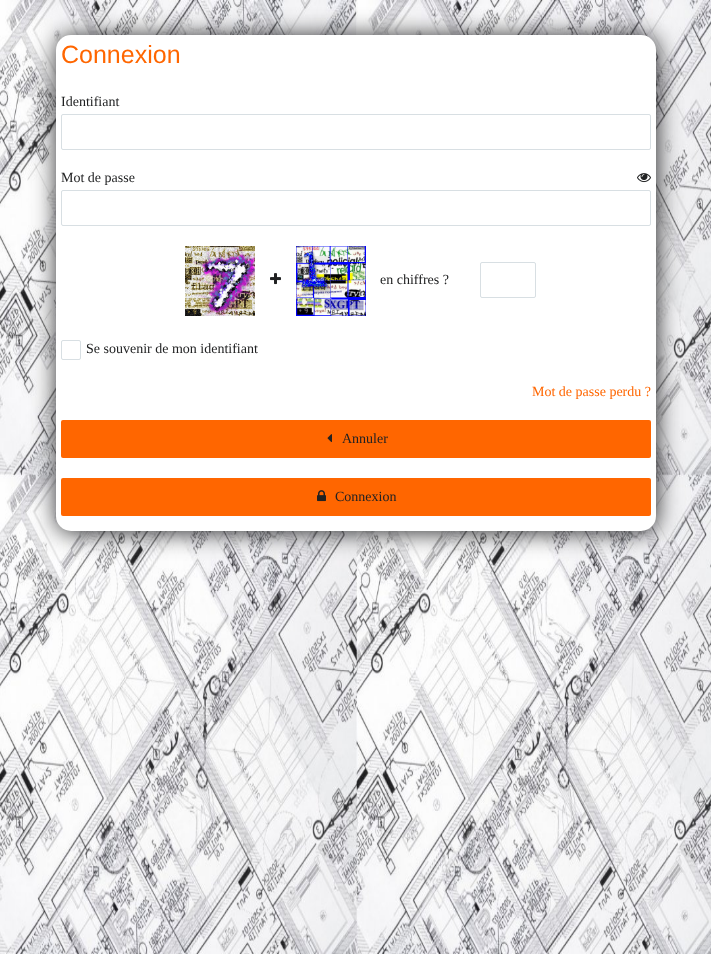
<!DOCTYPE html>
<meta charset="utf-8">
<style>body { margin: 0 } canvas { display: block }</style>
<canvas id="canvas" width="711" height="954"></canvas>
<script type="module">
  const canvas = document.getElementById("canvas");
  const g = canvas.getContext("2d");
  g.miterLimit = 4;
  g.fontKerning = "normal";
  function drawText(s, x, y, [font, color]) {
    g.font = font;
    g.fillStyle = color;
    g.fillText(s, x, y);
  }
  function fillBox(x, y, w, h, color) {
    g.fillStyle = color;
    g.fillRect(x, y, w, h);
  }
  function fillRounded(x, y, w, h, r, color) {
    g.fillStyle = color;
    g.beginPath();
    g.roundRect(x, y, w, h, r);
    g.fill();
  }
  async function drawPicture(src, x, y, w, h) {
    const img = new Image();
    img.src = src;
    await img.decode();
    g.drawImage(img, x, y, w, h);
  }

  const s1 = ["25px Liberation Sans", "#FF6600"];
  const s2 = ["14px Liberation Serif", "#212223"];
  const s3 = ["14px Liberation Serif", "#FF6600"];

  fillBox(0, 0, 711, 954, "#FFFFFF");
  await drawPicture("pic1.png", 0, 0, 711, 954);
  g.fillStyle = "#212223";
  g.filter = "blur(12.5px)";
  g.beginPath();
  g.roundRect(57, 36, 600, 496, 15);
  g.fill();
  g.filter = "none";
  fillRounded(56, 35, 600, 496, 15, "#FFFFFF");
  drawText("Connexion", 61, 63, s1);
  drawText("Identifiant", 61, 106, s2);
  g.beginPath();
  g.roundRect(61.5, 114.5, 589, 35, 1.5);
  g.strokeStyle = "#D8DFE3";
  g.stroke();
  drawText("Mot de passe", 61, 182, s2);
  await drawPicture("pic2.png", 637, 173, 14, 10);
  g.beginPath();
  g.roundRect(61.5, 190.5, 589, 35, 1.5);
  g.stroke();
  await drawPicture("pic3.png", 185, 246, 70, 70);
  await drawPicture("pic4.png", 270, 273, 11, 12);
  await drawPicture("pic5.png", 296, 246, 70, 70);
  drawText("en chiffres ?", 380, 284, s2);
  g.beginPath();
  g.roundRect(480.5, 262.5, 55, 35, 1.5);
  g.stroke();
  g.beginPath();
  g.roundRect(61.5, 340.5, 19, 19, 1.5);
  g.stroke();
  drawText("Se souvenir de mon identifiant", 86, 353, s2);
  drawText("Mot de passe perdu ?", 532, 396, s3);
  fillRounded(61, 420, 590, 38, 2, "#FF6600");
  await drawPicture("pic6.png", 327, 434, 5, 9);
  drawText("Annuler", 342, 443, s2);
  fillRounded(61, 478, 590, 38, 2, "#FF6600");
  await drawPicture("pic7.png", 317, 490, 9, 12);
  drawText("Connexion", 335, 501, s2);
</script>
